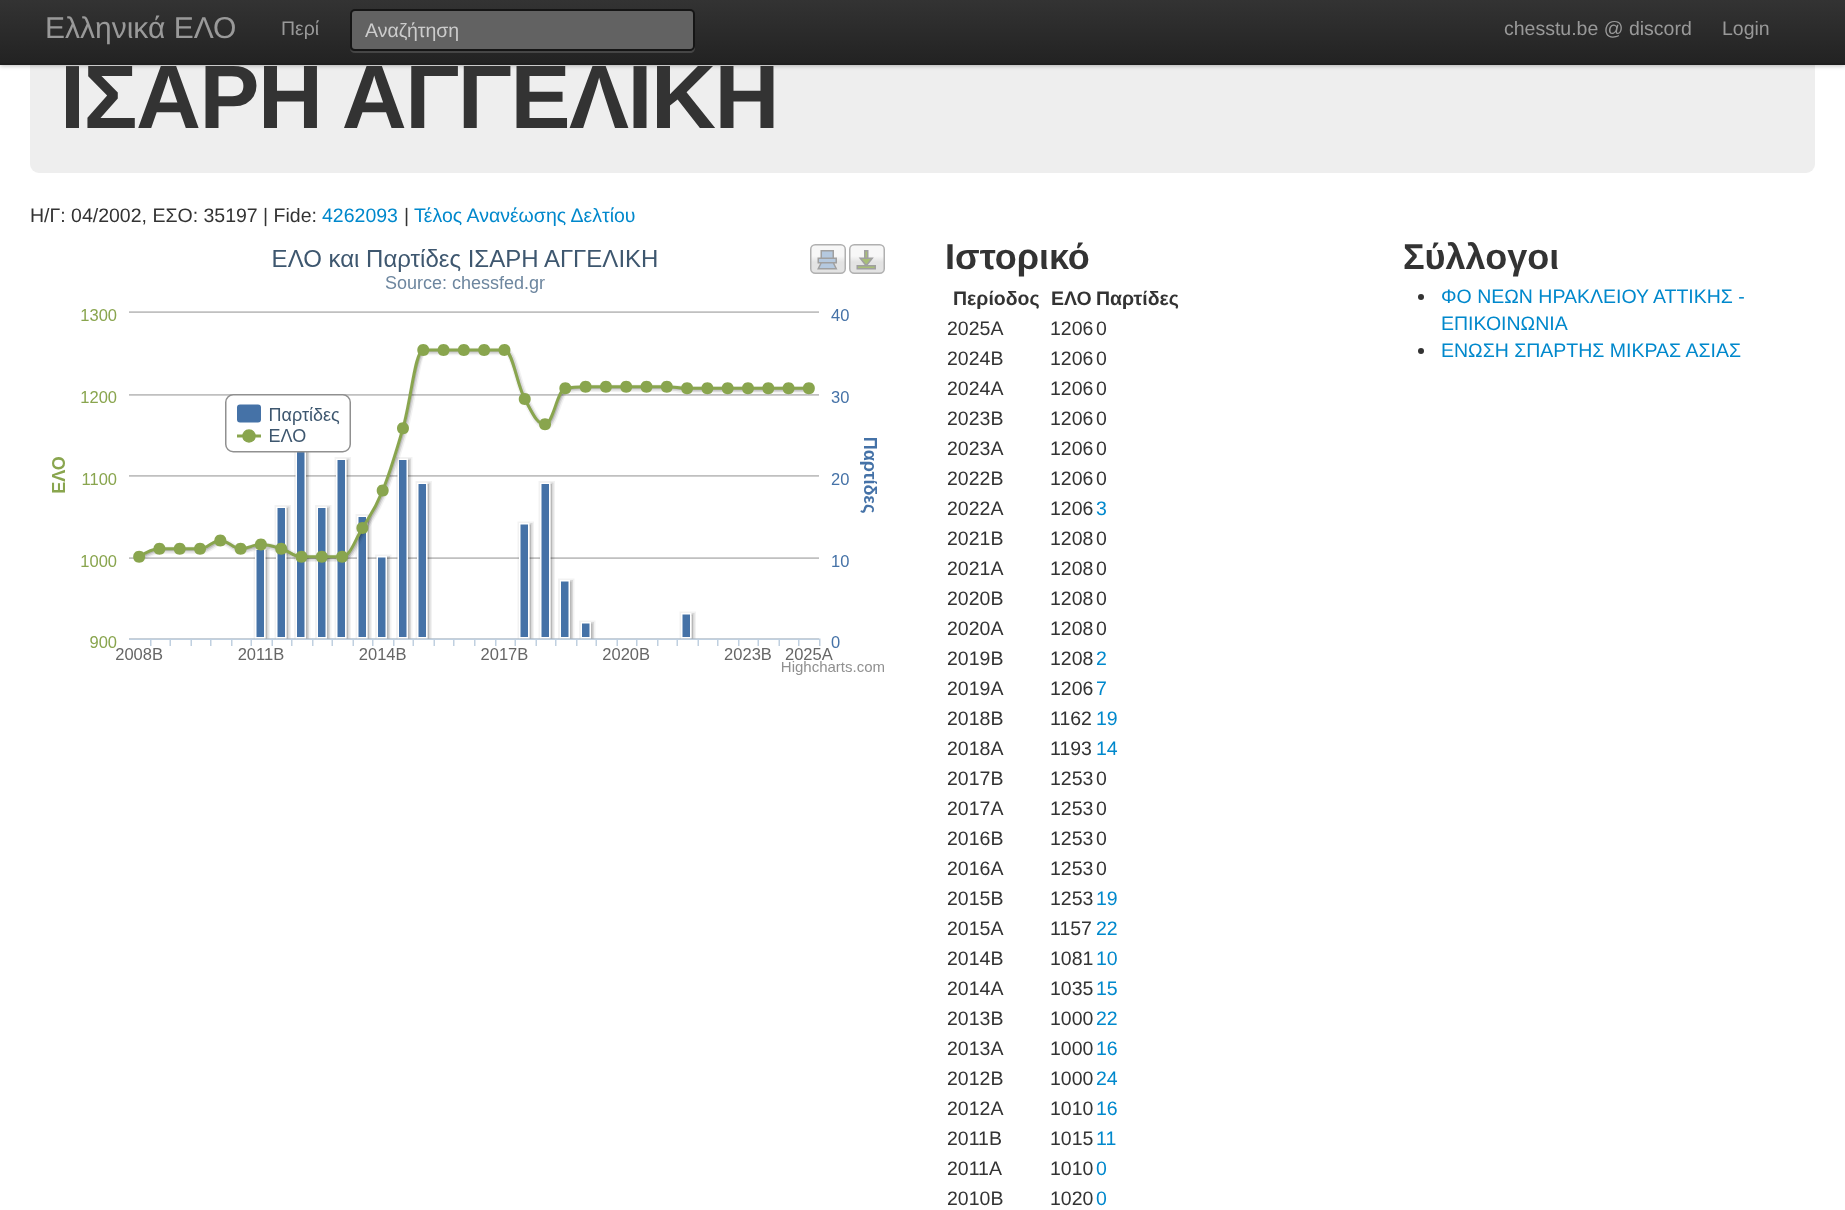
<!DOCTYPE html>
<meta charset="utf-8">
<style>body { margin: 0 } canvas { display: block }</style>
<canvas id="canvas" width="1845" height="1210"></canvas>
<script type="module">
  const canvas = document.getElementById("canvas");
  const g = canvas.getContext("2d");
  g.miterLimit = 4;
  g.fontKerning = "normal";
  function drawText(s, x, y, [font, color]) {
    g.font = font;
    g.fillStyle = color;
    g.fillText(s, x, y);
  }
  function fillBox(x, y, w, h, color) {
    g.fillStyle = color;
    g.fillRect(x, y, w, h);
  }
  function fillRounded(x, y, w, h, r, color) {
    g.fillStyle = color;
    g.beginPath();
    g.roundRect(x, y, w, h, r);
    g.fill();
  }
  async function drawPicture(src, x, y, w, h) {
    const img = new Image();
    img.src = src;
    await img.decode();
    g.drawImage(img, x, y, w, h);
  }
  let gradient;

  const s1 = ["30px Liberation Sans", "#999999"];
  const s2 = ["19.5px Liberation Sans", "#999999"];
  const s3 = ["19.5px Liberation Sans", "#CCCCCC"];
  const s4 = ["bold 90px Liberation Sans", "#333333"];
  const s5 = ["19.5px Liberation Sans", "#333333"];
  const s6 = ["19.5px Liberation Sans", "#0088CC"];
  const s7 = ["bold 36px Liberation Sans", "#333333"];
  const s8 = ["bold 19.5px Liberation Sans", "#333333"];

  fillBox(0, 0, 1845, 1210, "#FFFFFF");
  fillRounded(30, 23, 1785, 150, 9, "#EEEEEE");
  g.fillStyle = "rgba(0, 0, 0, 0.25)";
  g.filter = "blur(2px)";
  g.beginPath();
  g.rect(0, 2, 1845, 64);
  g.fill();
  g.filter = "none";
  gradient = g.createLinearGradient(923, 0, 923, 65);
  gradient.addColorStop(0, "#333333");
  gradient.addColorStop(1, "#222222");
  g.fillStyle = gradient;
  g.fillRect(0, 0, 1845, 63);
  fillBox(0, 63, 1845, 2, "#1F1F1F");
  drawText("Ελληνικά ΕΛΟ", 45, 38, s1);
  drawText("Περί", 281, 35, s2);
  g.fillStyle = "rgba(255, 255, 255, 0.15)";
  g.beginPath();
  g.moveTo(350, 49);
  g.bezierCurveTo(350, 51, 352, 53, 355, 53);
  g.lineTo(690, 53);
  g.bezierCurveTo(693, 53, 695, 51, 695, 48);
  g.lineTo(695, 16);
  g.lineTo(694, 14);
  g.lineTo(694, 46);
  g.bezierCurveTo(694, 49, 692, 51, 690, 51);
  g.lineTo(354, 51);
  g.bezierCurveTo(352, 51, 351, 50, 350, 49);
  g.closePath();
  g.fill();
  g.fillStyle = "#626262";
  g.beginPath();
  g.roundRect(351, 10, 343, 40, 4);
  g.fill();
  g.strokeStyle = "#151515";
  g.lineWidth = 2;
  g.stroke();
  drawText("Αναζήτηση", 365, 37, s3);
  drawText("chesstu.be @ discord", 1504, 35, s2);
  drawText("Login", 1722, 35, s2);
  g.letterSpacing = "-1.5px";
  drawText("ΙΣΑΡΗ ΑΓΓΕΛΙΚΗ", 60, 128, s4);
  g.letterSpacing = "0px";
  drawText("Η/Γ: 04/2002, ΕΣΟ: 35197 | Fide:", 30, 222, s5);
  drawText("4262093", 322, 222, s6);
  drawText("|", 404, 222, s5);
  drawText("Τέλος Ανανέωσης Δελτίου", 414, 222, s6);
  await drawPicture("pic1.png", 52, 244, 833, 431);
  drawText("Ιστορικό", 945, 269, s7);
  drawText("Περίοδος", 953, 305, s8);
  drawText("ΕΛΟ", 1051, 305, s8);
  drawText("Παρτίδες", 1096, 305, s8);
  drawText("2025A", 947, 335, s5);
  drawText("1206", 1050, 335, s5);
  drawText("0", 1096, 335, s5);
  drawText("2024B", 947, 365, s5);
  drawText("1206", 1050, 365, s5);
  drawText("0", 1096, 365, s5);
  drawText("2024A", 947, 395, s5);
  drawText("1206", 1050, 395, s5);
  drawText("0", 1096, 395, s5);
  drawText("2023B", 947, 425, s5);
  drawText("1206", 1050, 425, s5);
  drawText("0", 1096, 425, s5);
  drawText("2023Α", 947, 455, s5);
  drawText("1206", 1050, 455, s5);
  drawText("0", 1096, 455, s5);
  drawText("2022B", 947, 485, s5);
  drawText("1206", 1050, 485, s5);
  drawText("0", 1096, 485, s5);
  drawText("2022A", 947, 515, s5);
  drawText("1206", 1050, 515, s5);
  drawText("3", 1096, 515, s6);
  drawText("2021B", 947, 545, s5);
  drawText("1208", 1050, 545, s5);
  drawText("0", 1096, 545, s5);
  drawText("2021A", 947, 575, s5);
  drawText("1208", 1050, 575, s5);
  drawText("0", 1096, 575, s5);
  drawText("2020B", 947, 605, s5);
  drawText("1208", 1050, 605, s5);
  drawText("0", 1096, 605, s5);
  drawText("2020A", 947, 635, s5);
  drawText("1208", 1050, 635, s5);
  drawText("0", 1096, 635, s5);
  drawText("2019B", 947, 665, s5);
  drawText("1208", 1050, 665, s5);
  drawText("2", 1096, 665, s6);
  drawText("2019A", 947, 695, s5);
  drawText("1206", 1050, 695, s5);
  drawText("7", 1096, 695, s6);
  drawText("2018B", 947, 725, s5);
  drawText("1162", 1050, 725, s5);
  drawText("19", 1096, 725, s6);
  drawText("2018A", 947, 755, s5);
  drawText("1193", 1050, 755, s5);
  drawText("14", 1096, 755, s6);
  drawText("2017B", 947, 785, s5);
  drawText("1253", 1050, 785, s5);
  drawText("0", 1096, 785, s5);
  drawText("2017A", 947, 815, s5);
  drawText("1253", 1050, 815, s5);
  drawText("0", 1096, 815, s5);
  drawText("2016B", 947, 845, s5);
  drawText("1253", 1050, 845, s5);
  drawText("0", 1096, 845, s5);
  drawText("2016A", 947, 875, s5);
  drawText("1253", 1050, 875, s5);
  drawText("0", 1096, 875, s5);
  drawText("2015B", 947, 905, s5);
  drawText("1253", 1050, 905, s5);
  drawText("19", 1096, 905, s6);
  drawText("2015A", 947, 935, s5);
  drawText("1157", 1050, 935, s5);
  drawText("22", 1096, 935, s6);
  drawText("2014B", 947, 965, s5);
  drawText("1081", 1050, 965, s5);
  drawText("10", 1096, 965, s6);
  drawText("2014A", 947, 995, s5);
  drawText("1035", 1050, 995, s5);
  drawText("15", 1096, 995, s6);
  drawText("2013B", 947, 1025, s5);
  drawText("1000", 1050, 1025, s5);
  drawText("22", 1096, 1025, s6);
  drawText("2013A", 947, 1055, s5);
  drawText("1000", 1050, 1055, s5);
  drawText("16", 1096, 1055, s6);
  drawText("2012B", 947, 1085, s5);
  drawText("1000", 1050, 1085, s5);
  drawText("24", 1096, 1085, s6);
  drawText("2012A", 947, 1115, s5);
  drawText("1010", 1050, 1115, s5);
  drawText("16", 1096, 1115, s6);
  drawText("2011B", 947, 1145, s5);
  drawText("1015", 1050, 1145, s5);
  drawText("11", 1096, 1145, s6);
  drawText("2011A", 947, 1175, s5);
  drawText("1010", 1050, 1175, s5);
  drawText("0", 1096, 1175, s6);
  drawText("2010B", 947, 1205, s5);
  drawText("1020", 1050, 1205, s5);
  drawText("0", 1096, 1205, s6);
  drawText("Σύλλογοι", 1403, 269, s7);
  g.beginPath();
  g.arc(1421, 297, 3, 0, Math.PI * 2);
  g.fill();
  drawText("ΦΟ ΝΕΩΝ ΗΡΑΚΛΕΙΟΥ ΑΤΤΙΚΗΣ -", 1441, 303, s6);
  drawText("ΕΠΙΚΟΙΝΩΝΙΑ", 1441, 330, s6);
  g.fillStyle = "#333333";
  g.beginPath();
  g.arc(1421, 351, 3, 0, Math.PI * 2);
  g.fill();
  drawText("ΕΝΩΣΗ ΣΠΑΡΤΗΣ ΜΙΚΡΑΣ ΑΣΙΑΣ", 1441, 357, s6);
</script>
